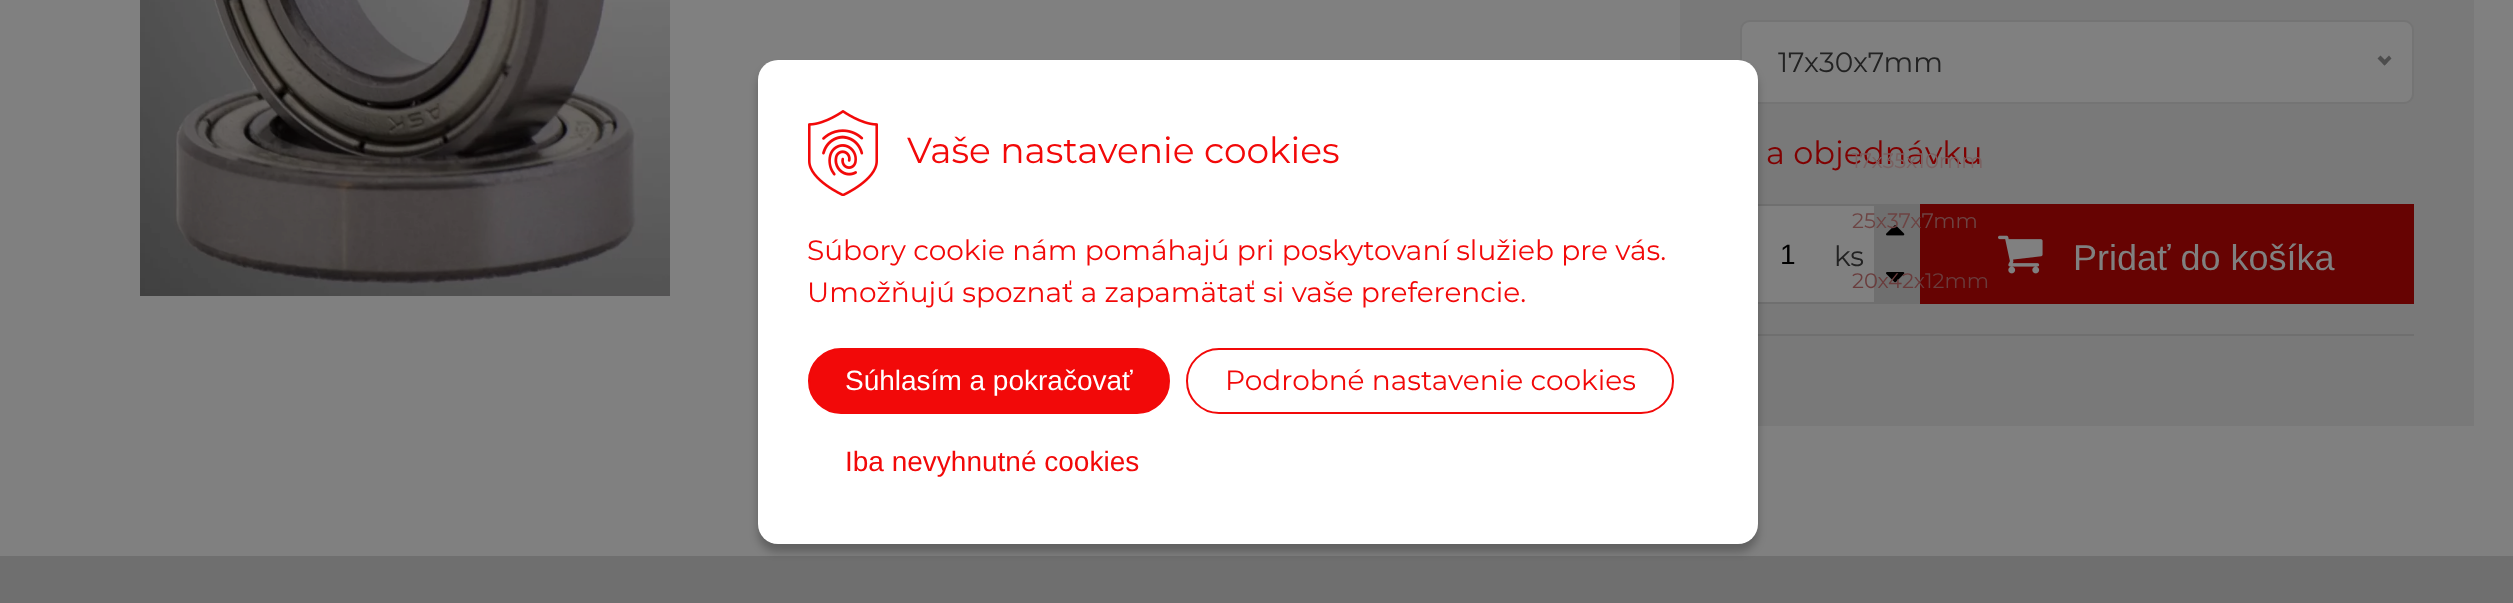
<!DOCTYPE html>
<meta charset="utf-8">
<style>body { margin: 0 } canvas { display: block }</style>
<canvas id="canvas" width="2513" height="603"></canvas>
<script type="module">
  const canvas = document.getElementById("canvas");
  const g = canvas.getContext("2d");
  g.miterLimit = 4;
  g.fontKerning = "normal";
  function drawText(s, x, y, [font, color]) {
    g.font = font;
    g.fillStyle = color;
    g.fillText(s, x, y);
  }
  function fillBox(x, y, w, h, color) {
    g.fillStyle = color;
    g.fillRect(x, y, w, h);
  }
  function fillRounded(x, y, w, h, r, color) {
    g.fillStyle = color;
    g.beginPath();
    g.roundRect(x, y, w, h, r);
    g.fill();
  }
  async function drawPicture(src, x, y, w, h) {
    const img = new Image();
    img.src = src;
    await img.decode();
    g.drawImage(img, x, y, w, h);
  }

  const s1 = ["36px Montserrat", "#F20909"];
  const s2 = ["28px Montserrat", "#F20909"];
  const s3 = ["28px Liberation Sans", "#FFFFFF"];
  const s4 = ["28px Liberation Sans", "#F20909"];
  const s5 = ["28px Montserrat", "#222222"];
  const s6 = ["32px Montserrat", "#800000"];
  const s7 = ["21px Montserrat", "#7A6161"];
  const s8 = ["21px Montserrat", "#6D4443"];
  const s9 = ["21px Montserrat", "#6A3C3C"];
  const s10 = ["28px Liberation Sans", "#000000"];
  const s11 = ["36px Liberation Sans", "#808080"];

  fillBox(0, 0, 2513, 603, "#6F6F6F");
  fillBox(0, 0, 2513, 556, "#808080");
  fillBox(1680, 0, 794, 426, "#797979");
  g.fillStyle = "#808080";
  g.beginPath();
  g.roundRect(1741, 21, 672, 82, 9);
  g.fill();
  g.strokeStyle = "#747474";
  g.lineWidth = 2;
  g.stroke();
  fillBox(1758, 206, 116, 96, "#808080");
  g.strokeStyle = "#6F6F6F";
  g.strokeRect(1741, 205, 178, 98);
  fillBox(1758, 334, 656, 2, "#6F6F6F");
  g.fillStyle = "rgba(0, 0, 0, 0.25)";
  g.filter = "blur(4px)";
  g.beginPath();
  g.roundRect(758, 68, 1000, 484, 20);
  g.fill();
  g.filter = "none";
  fillRounded(758, 60, 1000, 484, 20, "#FFFFFF");
  await drawPicture("pic1.png", 808, 110, 70, 86);
  drawText("Vaše nastavenie cookies", 907, 163, s1);
  drawText("Súbory cookie nám pomáhajú pri poskytovaní služieb pre vás.", 807, 260, s2);
  drawText("Umožňujú spoznať a zapamätať si vaše preferencie.", 807, 302, s2);
  g.beginPath();
  g.roundRect(809, 349, 360, 64, 32);
  g.fill();
  g.strokeStyle = "#F20909";
  g.stroke();
  drawText("Súhlasím a pokračovať", 845, 390, s3);
  g.beginPath();
  g.roundRect(1187, 349, 486, 64, 32);
  g.stroke();
  drawText("Podrobné nastavenie cookies", 1225, 390, s2);
  drawText("Iba nevyhnutné cookies", 845, 471, s4);
  await drawPicture("pic2.png", 140, 0, 530, 296);
  drawText("17x30x7mm", 1778, 72, s5);
  g.fillStyle = "#4D4D4D";
  g.beginPath();
  g.moveTo(2389, 55.5);
  g.lineTo(2391.5, 58.5);
  g.lineTo(2384.5, 65.5);
  g.lineTo(2382, 62.5);
  g.closePath();
  g.fill();
  g.beginPath();
  g.moveTo(2380.5, 55.5);
  g.lineTo(2387.5, 62.5);
  g.lineTo(2384.5, 65.5);
  g.lineTo(2377.5, 58.5);
  g.closePath();
  g.fill();
  drawText("a objednávku", 1766, 164, s6);
  drawText("17x35x10mm", 1852, 168, s7);
  fillBox(1874, 206, 44, 96, "#6F6F6F");
  await drawPicture("pic3.png", 1886, 225, 19, 11);
  fillBox(1920, 204, 494, 100, "#660302");
  drawText("25x37x7mm", 1852, 228, s8);
  await drawPicture("pic4.png", 1886, 272, 19, 11);
  drawText("20x42x12mm", 1852, 288, s9);
  drawText("1", 1780, 264, s10);
  drawText("ks", 1834, 266, s5);
  await drawPicture("pic5.png", 1998, 235, 45, 39);
  drawText("Pridať do košíka", 2073, 270, s11);
</script>
